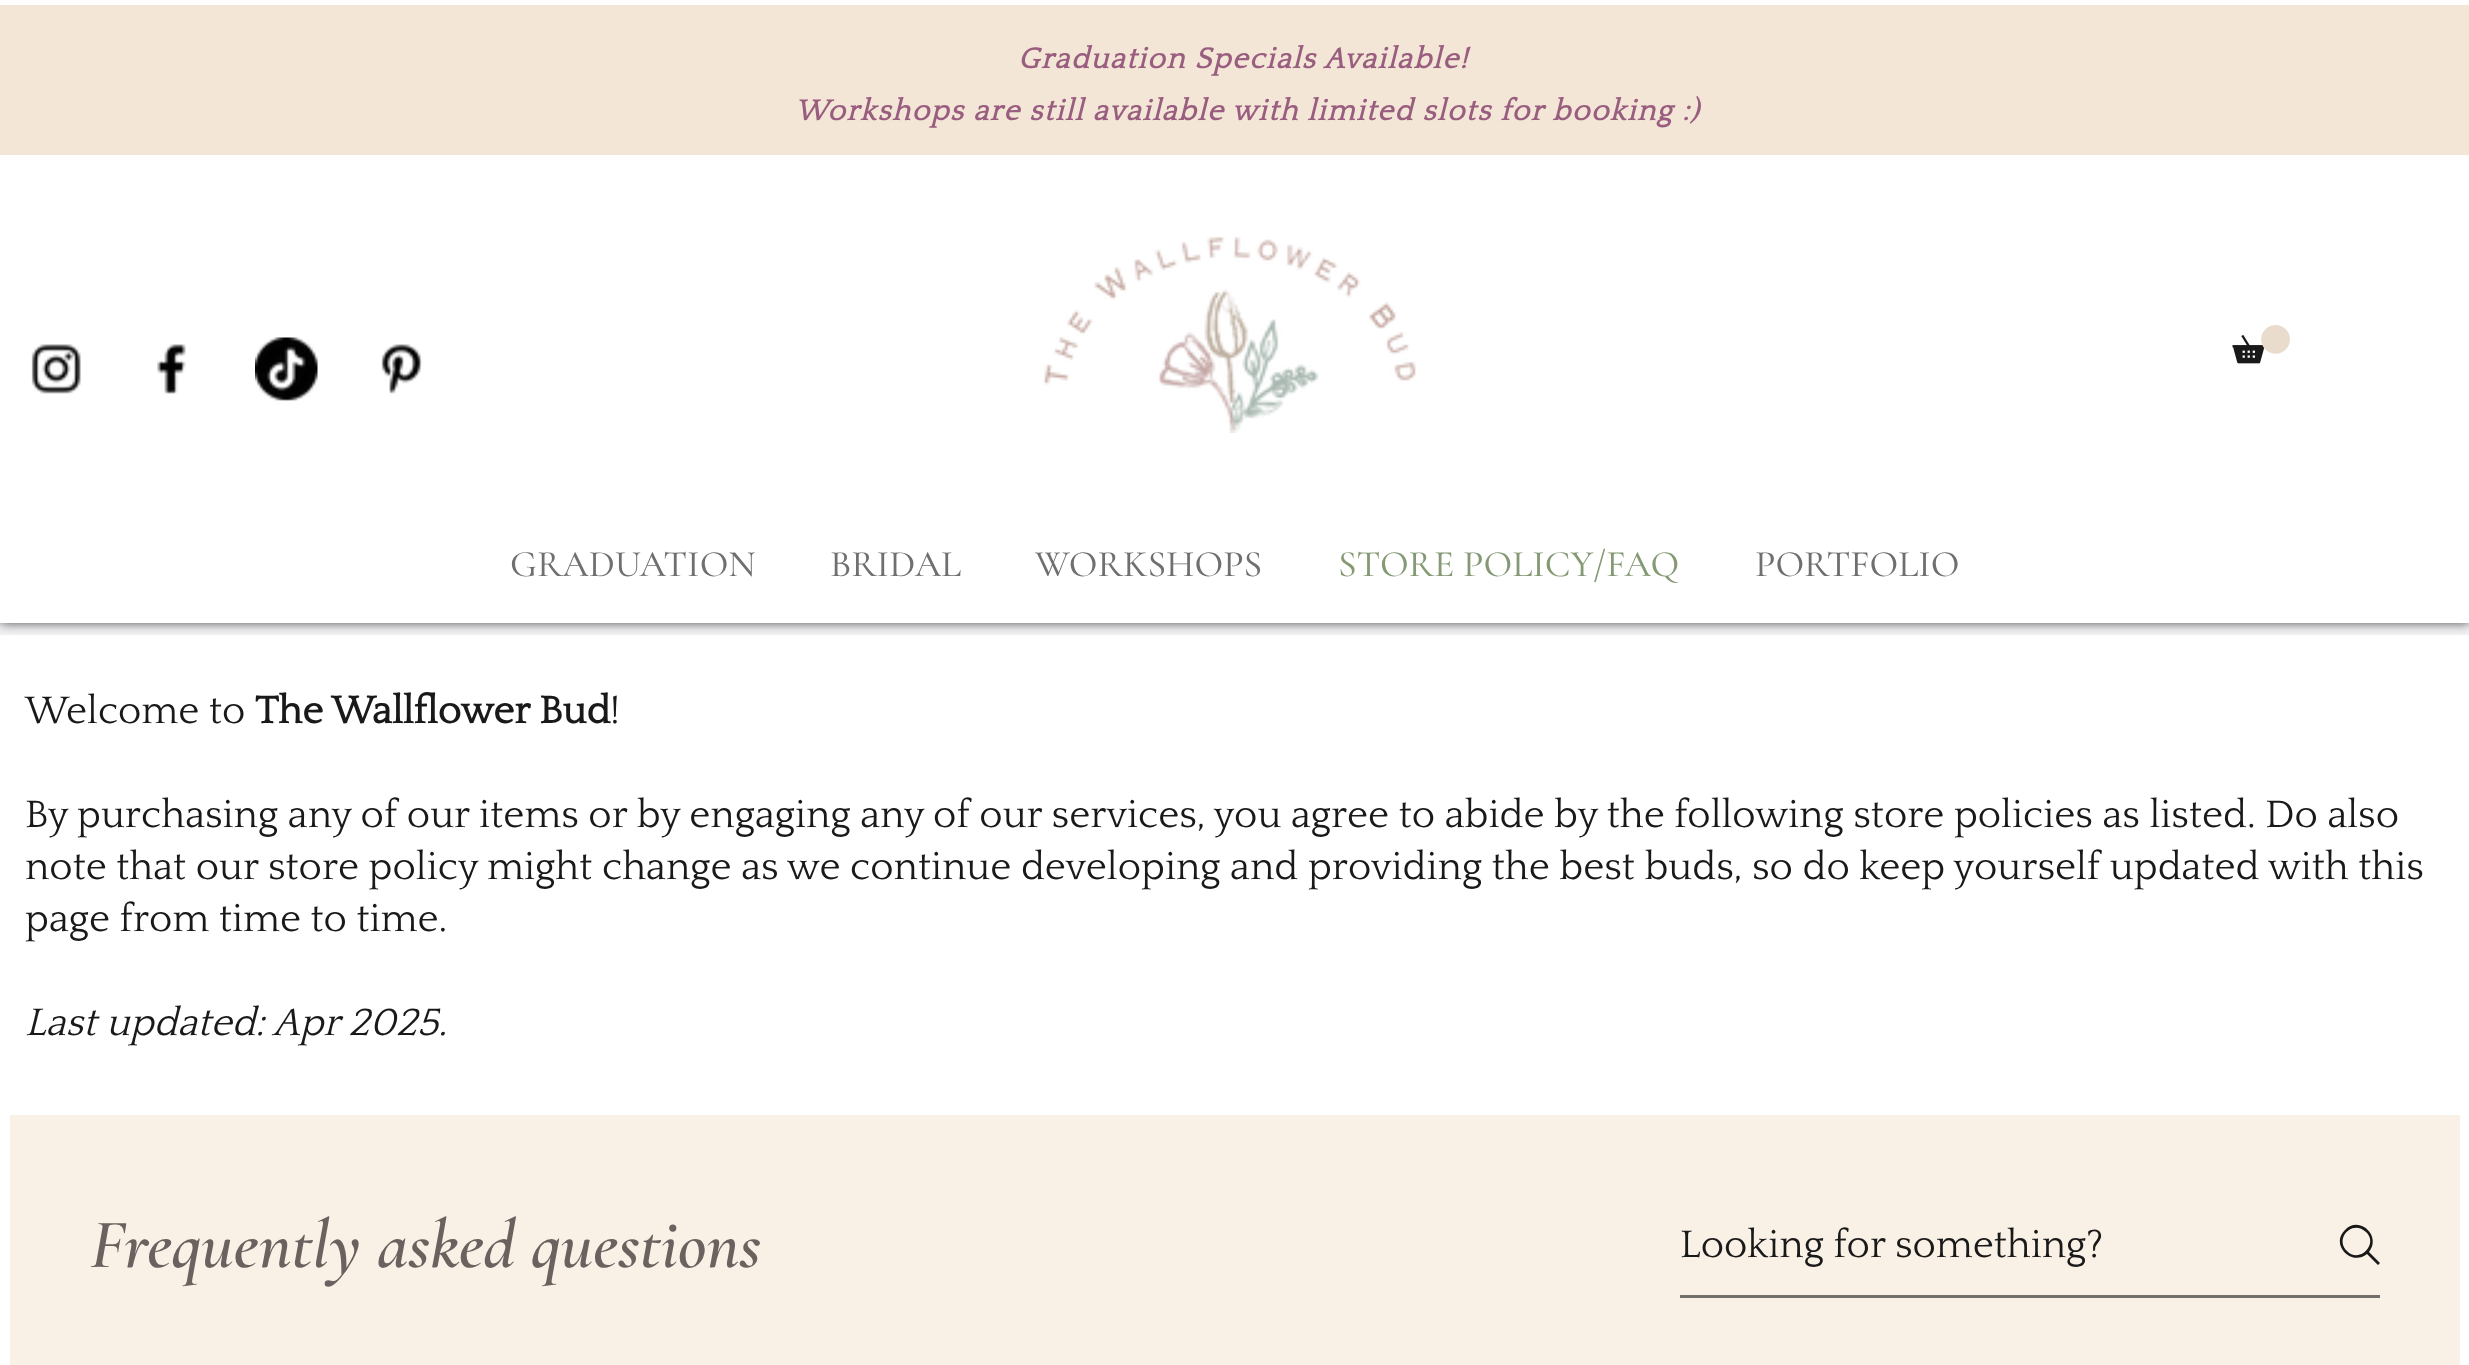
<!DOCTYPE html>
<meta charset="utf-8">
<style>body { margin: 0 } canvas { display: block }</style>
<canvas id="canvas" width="2469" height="1365"></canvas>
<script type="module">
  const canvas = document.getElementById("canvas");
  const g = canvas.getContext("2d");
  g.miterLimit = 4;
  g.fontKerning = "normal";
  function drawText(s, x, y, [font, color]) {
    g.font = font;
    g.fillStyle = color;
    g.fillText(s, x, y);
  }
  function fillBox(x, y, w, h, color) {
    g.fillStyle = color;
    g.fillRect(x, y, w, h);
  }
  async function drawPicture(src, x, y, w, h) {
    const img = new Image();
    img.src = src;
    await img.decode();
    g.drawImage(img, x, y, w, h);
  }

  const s1 = ["italic bold 30px Quattrocento", "#995D7F"];
  const s2 = ["500 37.5px Cormorant Garamond", "#706F6F"];
  const s3 = ["500 37.5px Cormorant Garamond", "#849974"];
  const s4 = ["40px Quattrocento", "#191919"];
  const s5 = ["bold 40px Quattrocento", "#191919"];
  const s6 = ["italic 40px Quattrocento", "#191919"];
  const s7 = ["italic 600 70px Cormorant Garamond", "#6B6260"];

  fillBox(0, 0, 2469, 1365, "#FFFFFF");
  fillBox(0, 623, 2469, 12, "#F3F3F5");
  g.fillStyle = "rgba(0, 0, 0, 0.7)";
  g.filter = "blur(6px)";
  g.beginPath();
  g.rect(0, 0, 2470, 623);
  g.fill();
  g.filter = "none";
  fillBox(0, 0, 2469, 623, "#FFFFFF");
  fillBox(0, 5, 2469, 150, "#F4E6D6");
  g.letterSpacing = "1.5px";
  drawText("Graduation Specials Available!", 1018, 68, s1);
  drawText("Workshops are still available with limited slots for booking :)", 795, 120, s1);
  await drawPicture("pic1.png", 31, 344, 50, 50);
  await drawPicture("pic2.png", 157, 344, 29, 50);
  await drawPicture("pic3.png", 255, 337, 63, 64);
  await drawPicture("pic4.png", 381, 344, 42, 50);
  await drawPicture("pic5.png", 1043, 237, 373, 196);
  await drawPicture("pic6.png", 2232, 325, 58, 39);
  g.letterSpacing = "0px";
  drawText("GRADUATION", 510, 576, s2);
  drawText("BRIDAL", 830, 576, s2);
  drawText("WORKSHOPS", 1035, 576, s2);
  drawText("STORE POLICY/FAQ", 1338, 576, s3);
  drawText("PORTFOLIO", 1755, 576, s2);
  drawText("Welcome to", 25, 723, s4);
  drawText("The Wallflower Bud", 255, 723, s5);
  drawText("!", 610, 723, s4);
  drawText("By purchasing any of our items or by engaging any of our services, you agree to abide by the following store policies as listed. Do also", 25, 827, s4);
  drawText("note that our store policy might change as we continue developing and providing the best buds, so do keep yourself updated with this", 25, 879, s4);
  drawText("page from time to time.", 25, 931, s4);
  drawText("Last updated: Apr 2025.", 25, 1035, s6);
  fillBox(10, 1115, 2450, 250, "#FAF1E6");
  drawText("Frequently asked questions", 90, 1267, s7);
  fillBox(1680, 1295, 700, 3, "#736F6B");
  drawText("Looking for something?", 1680, 1257, s4);
  g.beginPath();
  g.moveTo(2347, 1251);
  g.bezierCurveTo(2334, 1238, 2353, 1219, 2366, 1232);
  g.bezierCurveTo(2379, 1244, 2359, 1264, 2347, 1251);
  g.closePath();
  g.moveTo(2380, 1263);
  g.lineTo(2369, 1252);
  g.bezierCurveTo(2382, 1236, 2359, 1215, 2345, 1230);
  g.bezierCurveTo(2330, 1244, 2351, 1267, 2367, 1254);
  g.lineTo(2378, 1265);
  g.closePath();
  g.fill("evenodd");
</script>
